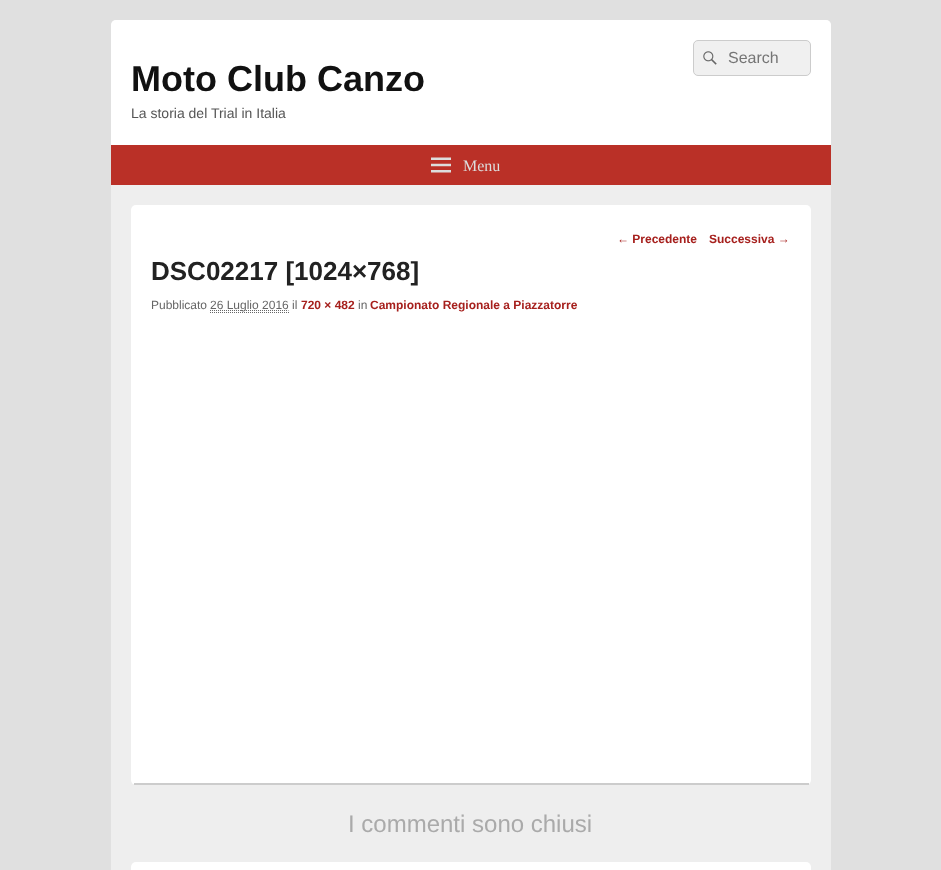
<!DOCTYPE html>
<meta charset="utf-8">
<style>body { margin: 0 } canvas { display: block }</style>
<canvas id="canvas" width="941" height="870"></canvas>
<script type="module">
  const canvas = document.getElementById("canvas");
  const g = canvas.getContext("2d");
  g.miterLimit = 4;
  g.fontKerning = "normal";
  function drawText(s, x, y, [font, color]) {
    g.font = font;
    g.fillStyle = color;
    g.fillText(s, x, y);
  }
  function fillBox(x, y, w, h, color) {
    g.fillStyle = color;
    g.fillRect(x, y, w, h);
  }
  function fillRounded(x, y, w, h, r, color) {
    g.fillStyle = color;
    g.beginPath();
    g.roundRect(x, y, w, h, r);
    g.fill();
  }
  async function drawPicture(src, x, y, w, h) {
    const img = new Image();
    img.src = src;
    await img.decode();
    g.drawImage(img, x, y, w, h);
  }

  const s1 = ["16px Liberation Sans", "#757575"];
  const s2 = ["bold 36px Liberation Sans", "#111111"];
  const s3 = ["14px Liberation Sans", "#555555"];
  const s4 = ["16px Liberation Serif", "#DDDDDD"];
  const s5 = ["bold 12px Liberation Sans", "#A6201D"];
  const s6 = ["bold 26px Liberation Sans", "#222222"];
  const s7 = ["12px Liberation Sans", "#666666"];
  const s8 = ["24px Liberation Sans", "#AAAAAA"];

  fillBox(0, 0, 941, 870, "#E0E0E0");
  fillRounded(111, 20, 720, 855, 5, "#EEEEEE");
  g.fillStyle = "#FFFFFF";
  g.beginPath();
  g.roundRect(111, 20, 720, 165, [5, 5, 0, 0]);
  g.fill();
  g.fillStyle = "#F0F0F0";
  g.beginPath();
  g.roundRect(693.5, 40.5, 117, 35, 4.5);
  g.fill();
  g.strokeStyle = "#CCCCCC";
  g.stroke();
  await drawPicture("pic1.png", 703, 51, 14, 14);
  drawText("Search", 728, 63, s1);
  drawText("Moto Club Canzo", 131, 91, s2);
  drawText("La storia del Trial in Italia", 131, 118, s3);
  fillBox(111, 145, 720, 40, "#BA3027");
  await drawPicture("pic2.png", 431, 157, 20, 16);
  drawText("Menu", 463, 171, s4);
  fillRounded(131, 205, 680, 580, 5, "#FFFFFF");
  drawText("← Precedente", 617, 243, s5);
  drawText("Successiva →", 709, 243, s5);
  fillBox(134, 783, 675, 2, "#CCCCCC");
  drawText("DSC02217 [1024×768]", 151, 280, s6);
  drawText("Pubblicato", 151, 309, s7);
  g.beginPath();
  g.moveTo(210, 310.5);
  g.lineTo(288.5, 310.5);
  g.strokeStyle = "#666666";
  g.setLineDash([1, 1]);
  g.stroke();
  drawText("26 Luglio 2016 il", 210, 309, s7);
  g.beginPath();
  g.moveTo(210, 312.5);
  g.lineTo(289, 312.5);
  g.stroke();
  drawText("720 × 482", 301, 309, s5);
  drawText("in", 358, 309, s7);
  drawText("Campionato Regionale a Piazzatorre", 370, 309, s5);
  drawText("I commenti sono chiusi", 348, 832, s8);
  fillRounded(131, 862, 680, 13, 5, "#FFFFFF");
</script>
